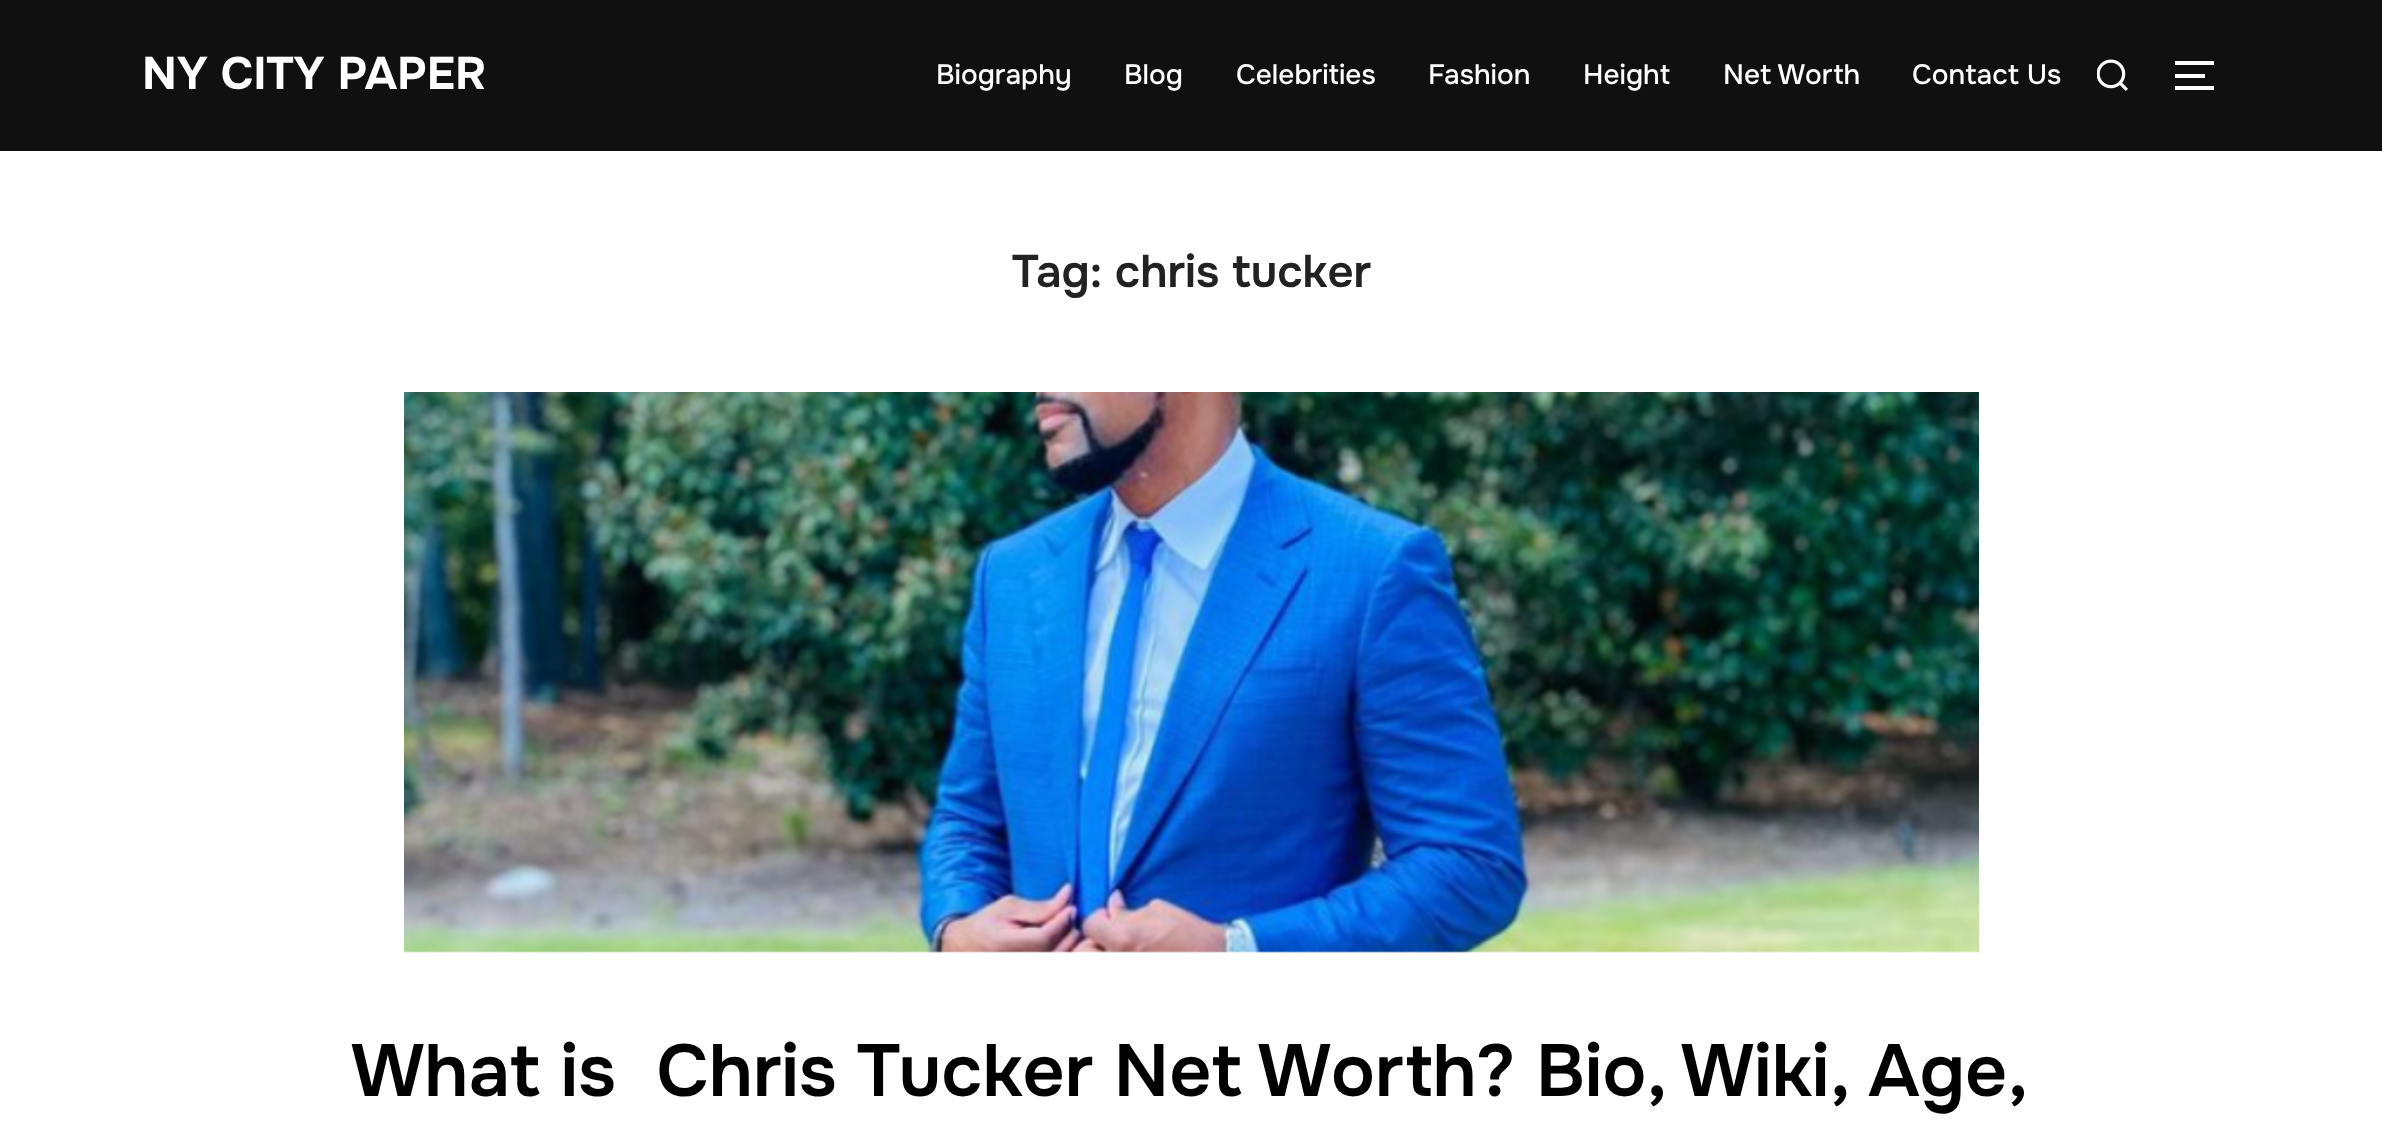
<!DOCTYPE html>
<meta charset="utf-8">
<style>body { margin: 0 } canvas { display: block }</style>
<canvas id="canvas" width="2382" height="1136"></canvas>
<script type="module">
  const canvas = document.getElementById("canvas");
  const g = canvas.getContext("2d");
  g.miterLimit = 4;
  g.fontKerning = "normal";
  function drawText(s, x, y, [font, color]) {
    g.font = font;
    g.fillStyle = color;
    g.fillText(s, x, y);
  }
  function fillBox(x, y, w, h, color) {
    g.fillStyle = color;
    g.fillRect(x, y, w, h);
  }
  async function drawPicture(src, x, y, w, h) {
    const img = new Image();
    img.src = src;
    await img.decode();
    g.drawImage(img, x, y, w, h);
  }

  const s1 = ["bold 45.5px Onest", "#FFFFFF"];
  const s2 = ["500 28px Onest", "#FFFFFF"];
  const s3 = ["600 45.5px Onest", "#222222"];
  const s4 = ["600 73.5px Onest", "#000000"];

  fillBox(0, 0, 2382, 1136, "#FFFFFF");
  fillBox(0, 0, 2382, 151, "#101010");
  drawText("NY CITY PAPER", 142, 89, s1);
  drawText("Biography", 936, 84, s2);
  drawText("Blog", 1124, 84, s2);
  drawText("Celebrities", 1236, 84, s2);
  drawText("Fashion", 1428, 84, s2);
  drawText("Height", 1583, 84, s2);
  drawText("Net Worth", 1723, 84, s2);
  drawText("Contact Us", 1912, 84, s2);
  await drawPicture("pic1.png", 2097, 59, 31, 32);
  fillBox(2175, 61, 39, 4, "#FFFFFF");
  fillBox(2175, 74, 30, 4, "#FFFFFF");
  fillBox(2175, 86, 39, 4, "#FFFFFF");
  drawText("Tag: chris tucker", 1012, 287, s3);
  await drawPicture("pic2.png", 404, 392, 1575, 561);
  drawText("What is  Chris Tucker Net Worth? Bio, Wiki, Age,", 351, 1096, s4);
</script>
